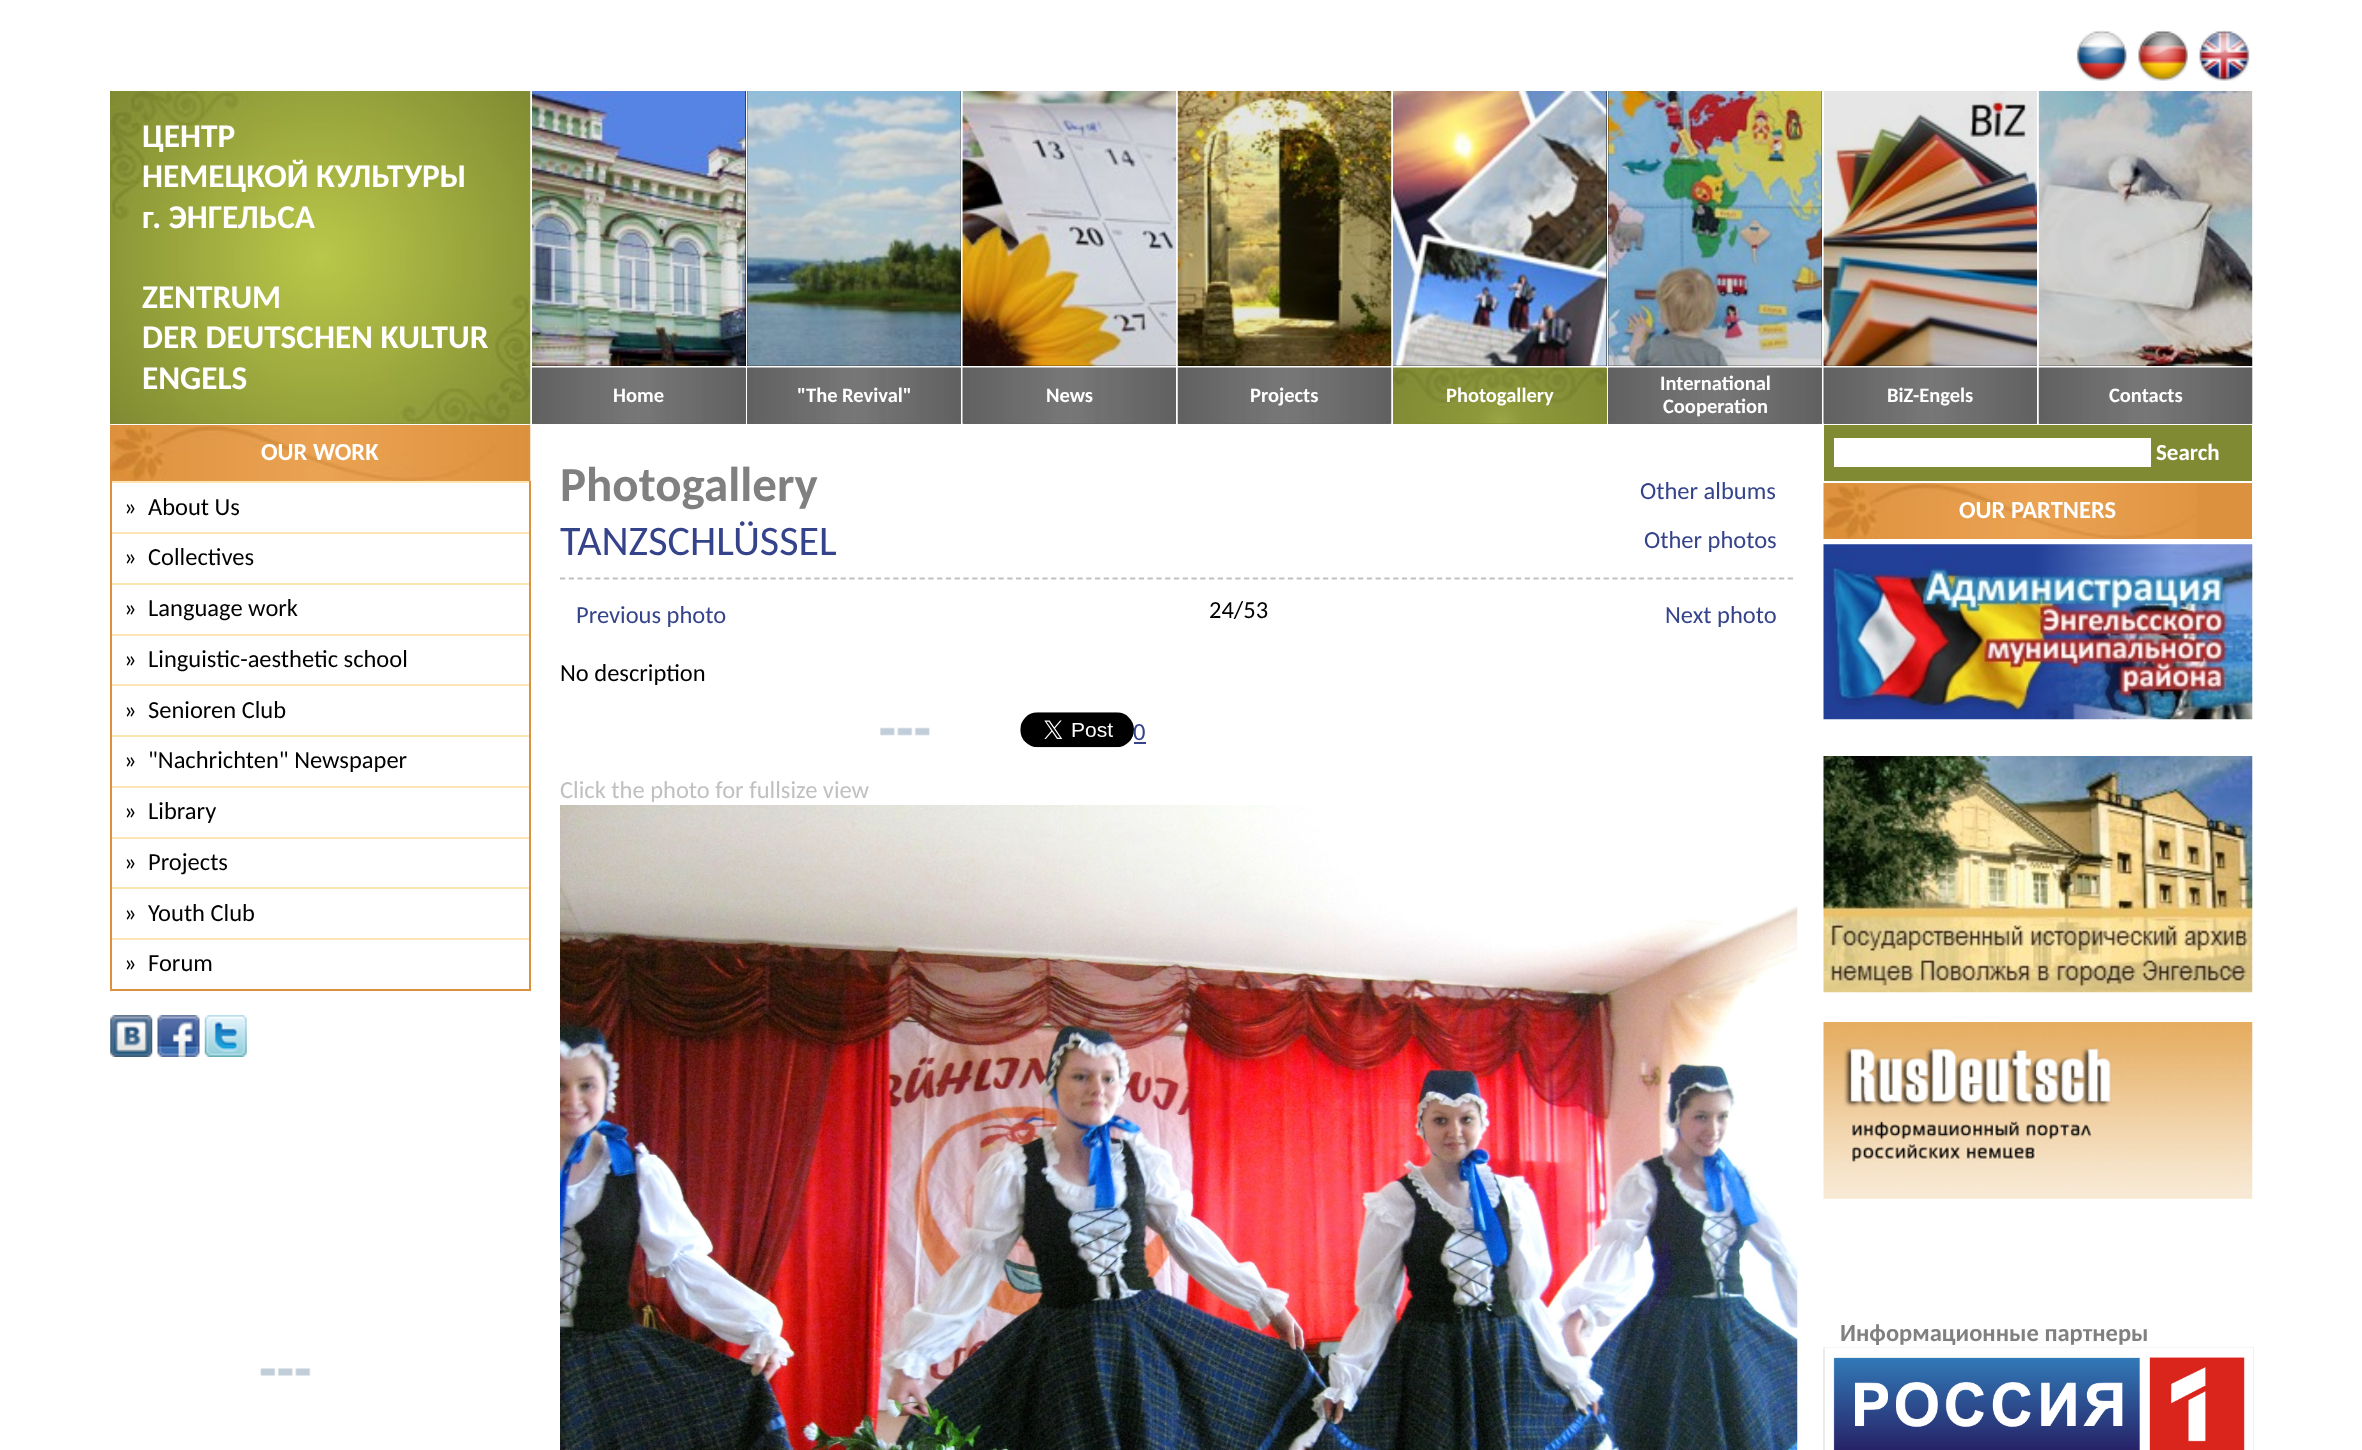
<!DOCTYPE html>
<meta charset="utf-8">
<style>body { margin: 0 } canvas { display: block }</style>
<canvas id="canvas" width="2362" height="1450"></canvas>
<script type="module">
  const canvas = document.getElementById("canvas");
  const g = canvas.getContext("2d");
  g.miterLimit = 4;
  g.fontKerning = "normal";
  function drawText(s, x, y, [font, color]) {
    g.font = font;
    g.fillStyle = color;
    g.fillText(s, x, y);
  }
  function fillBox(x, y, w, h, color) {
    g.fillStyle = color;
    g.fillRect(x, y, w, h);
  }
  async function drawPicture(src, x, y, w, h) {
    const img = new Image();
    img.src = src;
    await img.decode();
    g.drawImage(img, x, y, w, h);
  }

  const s1 = ["bold 33.25px Carlito", "#FFFFFF"];
  const s2 = ["bold 20.5px Carlito", "#FFFFFF"];
  const s3 = ["bold 24.5px Carlito", "#FFFFFF"];
  const s4 = ["24.5px Carlito", "#000000"];
  const s5 = ["bold 49px Carlito", "#808080"];
  const s6 = ["42px Carlito", "#35438B"];
  const s7 = ["24.5px Carlito", "#35438B"];
  const s8 = ["24.5px Carlito", "#C0C0C0"];
  const s9 = ["bold 23px Carlito", "#FFFFFF"];
  const s10 = ["bold 24.5px Carlito", "#808080"];

  fillBox(0, 0, 2362, 1450, "#FFFFFF");
  await drawPicture("pic1.png", 2076, 30, 51, 51);
  await drawPicture("pic2.png", 2138, 30, 50, 51);
  await drawPicture("pic3.png", 2199, 30, 51, 51);
  fillBox(110, 91, 420, 333, "#808A33");
  await drawPicture("pic4.png", 110, 91, 421, 333);
  drawText("ЦЕНТР", 142, 147, s1);
  drawText("НЕМЕЦКОЙ КУЛЬТУРЫ", 142, 187, s1);
  drawText("г. ЭНГЕЛЬСА", 142, 228, s1);
  drawText("ZENTRUM", 142, 308, s1);
  drawText("DER DEUTSCHEN KULTUR", 142, 348, s1);
  drawText("ENGELS", 142, 389, s1);
  fillBox(532, 91, 214, 275, "#000000");
  await drawPicture("pic5.png", 532, 91, 214, 275);
  fillBox(532, 368, 214, 56, "#666666");
  await drawPicture("pic6.png", 532, 367, 214, 57);
  drawText("Home", 613, 402, s2);
  fillBox(747, 91, 214, 275, "#000000");
  await drawPicture("pic7.png", 747, 91, 214, 275);
  fillBox(747, 368, 214, 56, "#666666");
  await drawPicture("pic8.png", 747, 367, 214, 57);
  drawText("\"The Revival\"", 797, 402, s2);
  fillBox(963, 91, 213, 275, "#000000");
  await drawPicture("pic9.png", 962, 91, 214, 275);
  fillBox(963, 423, 213, 1, "#666666");
  await drawPicture("pic10.png", 962, 367, 214, 57);
  drawText("News", 1046, 402, s2);
  fillBox(1178, 91, 213, 275, "#000000");
  await drawPicture("pic11.png", 1177, 91, 215, 275);
  fillBox(1178, 423, 213, 1, "#666666");
  await drawPicture("pic12.png", 1177, 367, 215, 57);
  drawText("Projects", 1250, 402, s2);
  fillBox(1393, 91, 214, 275, "#000000");
  await drawPicture("pic13.png", 1393, 91, 214, 275);
  fillBox(1393, 368, 214, 56, "#808A33");
  await drawPicture("pic14.png", 1393, 367, 214, 57);
  drawText("Photogallery", 1446, 402, s2);
  fillBox(1608, 91, 214, 275, "#000000");
  await drawPicture("pic15.png", 1608, 91, 214, 275);
  fillBox(1608, 368, 214, 56, "#666666");
  await drawPicture("pic8.png", 1608, 367, 214, 57);
  drawText("International", 1660, 390, s2);
  drawText("Cooperation", 1663, 413, s2);
  fillBox(1824, 91, 213, 275, "#000000");
  await drawPicture("pic16.png", 1823, 91, 214, 275);
  fillBox(1824, 423, 213, 1, "#666666");
  await drawPicture("pic10.png", 1823, 367, 214, 57);
  drawText("BiZ-Engels", 1887, 402, s2);
  fillBox(2039, 91, 213, 275, "#000000");
  await drawPicture("pic17.png", 2038, 91, 215, 275);
  fillBox(2039, 423, 213, 1, "#666666");
  await drawPicture("pic12.png", 2038, 367, 215, 57);
  drawText("Contacts", 2109, 402, s2);
  fillBox(110, 425, 420, 56, "#DC913F");
  await drawPicture("pic18.png", 110, 425, 421, 56);
  drawText("OUR WORK", 261, 460, s3);
  fillBox(529, 481, 2, 510, "#DC913F");
  fillBox(110, 989, 420, 2, "#DC913F");
  fillBox(110, 481, 2, 510, "#DC913F");
  fillBox(112, 481, 417, 2, "#FFE5B4");
  drawText("»", 124, 515, s4);
  drawText("About Us", 148, 515, s4);
  fillBox(112, 532, 417, 2, "#FFE5B4");
  drawText("»", 124, 565, s4);
  drawText("Collectives", 148, 565, s4);
  fillBox(112, 583, 417, 2, "#FFE5B4");
  drawText("»", 124, 616, s4);
  drawText("Language work", 148, 616, s4);
  fillBox(112, 634, 417, 2, "#FFE5B4");
  drawText("»", 124, 667, s4);
  drawText("Linguistic-aesthetic school", 148, 667, s4);
  fillBox(112, 684, 417, 2, "#FFE5B4");
  drawText("»", 124, 718, s4);
  drawText("Senioren Club", 148, 718, s4);
  fillBox(112, 735, 417, 2, "#FFE5B4");
  drawText("»", 124, 768, s4);
  drawText("\"Nachrichten\" Newspaper", 148, 768, s4);
  fillBox(112, 786, 417, 2, "#FFE5B4");
  drawText("»", 124, 819, s4);
  drawText("Library", 148, 819, s4);
  fillBox(112, 837, 417, 2, "#FFE5B4");
  drawText("»", 124, 870, s4);
  drawText("Projects", 148, 870, s4);
  fillBox(112, 887, 417, 2, "#FFE5B4");
  drawText("»", 124, 921, s4);
  drawText("Youth Club", 148, 921, s4);
  fillBox(112, 938, 417, 2, "#FFE5B4");
  drawText("»", 124, 971, s4);
  drawText("Forum", 148, 971, s4);
  await drawPicture("pic19.png", 110, 1015, 43, 42);
  await drawPicture("pic20.png", 157, 1015, 43, 42);
  await drawPicture("pic21.png", 204, 1015, 43, 42);
  await drawPicture("pic22.png", 260, 1368, 51, 8);
  drawText("Photogallery", 560, 501, s5);
  drawText("TANZSCHLÜSSEL", 560, 555, s6);
  drawText("Other albums", 1640, 499, s7);
  drawText("Other photos", 1644, 548, s7);
  g.beginPath();
  g.moveTo(560, 578.5);
  g.lineTo(1794, 578.5);
  g.strokeStyle = "#C0C0C0";
  g.lineWidth = 1.8;
  g.setLineDash([5.25, 3.52]);
  g.stroke();
  drawText("Previous photo", 576, 623, s7);
  drawText("24/53", 1209, 618, s4);
  drawText("Next photo", 1665, 623, s7);
  drawText("No description", 560, 681, s4);
  await drawPicture("pic23.png", 880, 727, 50, 9);
  await drawPicture("pic24.png", 1020, 712, 114, 36);
  drawText("0", 1133, 740, s7);
  fillBox(1134, 742, 12, 2, "#35438B");
  drawText("Click the photo for fullsize view", 560, 798, s8);
  await drawPicture("pic25.png", 560, 805, 1238, 645);
  fillBox(1824, 425, 428, 56, "#808A33");
  fillBox(1834, 438, 317, 29, "#FFFFFF");
  drawText("Search", 2156, 460, s9);
  fillBox(2197, 483, 55, 56, "#DC913F");
  await drawPicture("pic26.png", 1823, 483, 374, 56);
  drawText("OUR PARTNERS", 1959, 518, s3);
  await drawPicture("pic27.png", 1823, 544, 430, 176);
  await drawPicture("pic28.png", 1823, 756, 430, 237);
  await drawPicture("pic29.png", 1823, 1022, 430, 177);
  drawText("Информационные партнеры", 1840, 1341, s10);
  await drawPicture("pic30.png", 1823, 1347, 431, 103);
</script>
